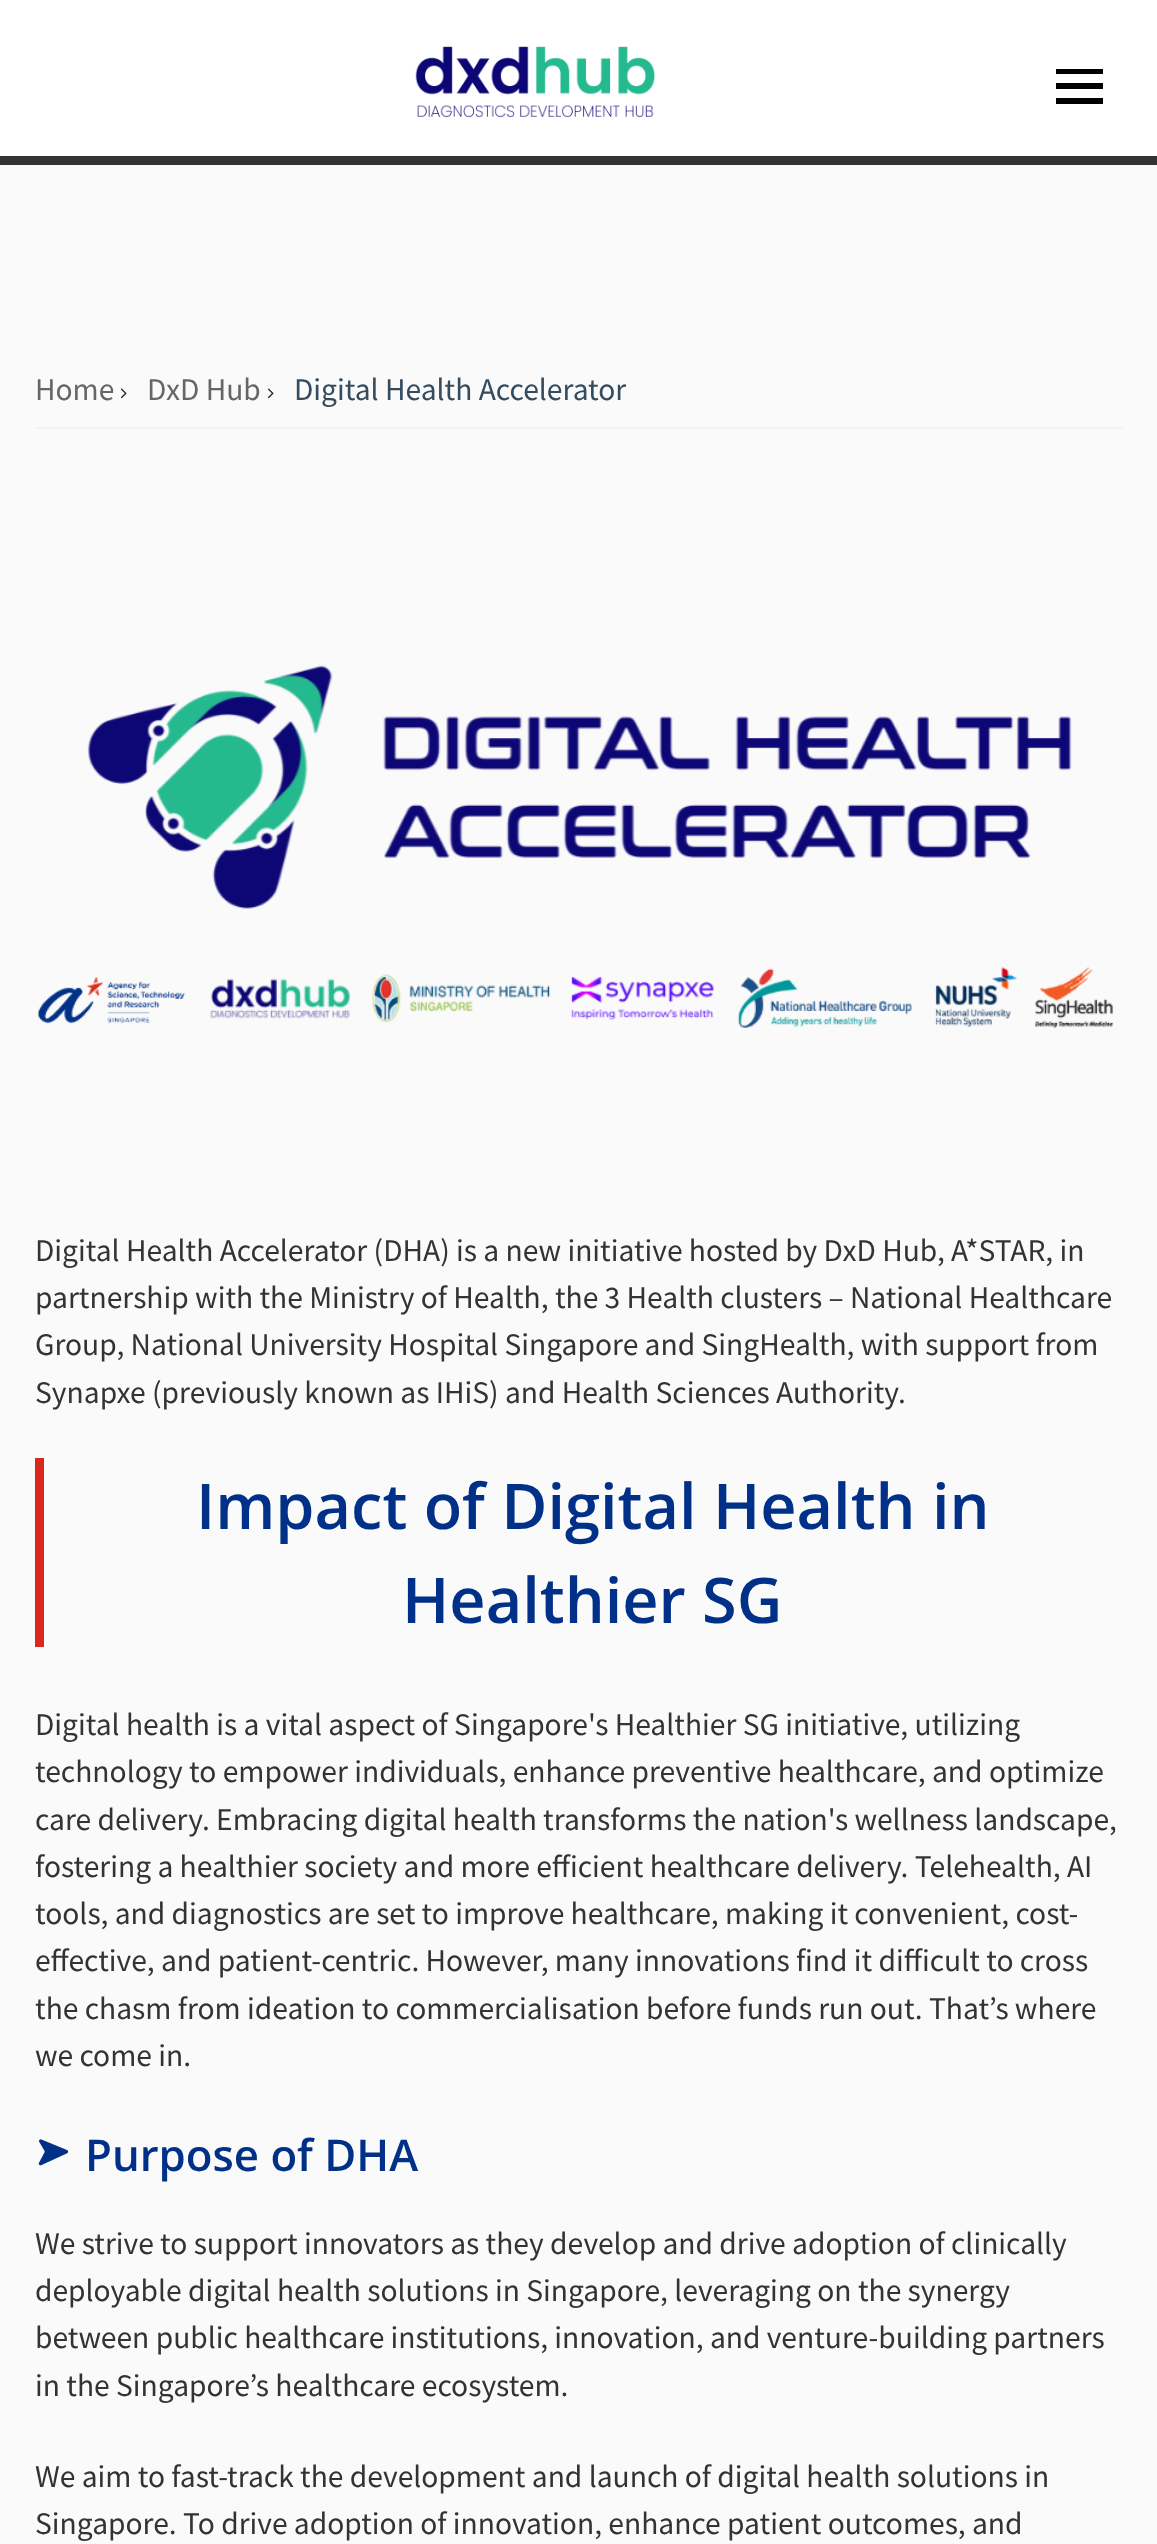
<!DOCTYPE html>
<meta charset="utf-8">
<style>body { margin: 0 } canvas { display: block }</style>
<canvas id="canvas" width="1157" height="2544"></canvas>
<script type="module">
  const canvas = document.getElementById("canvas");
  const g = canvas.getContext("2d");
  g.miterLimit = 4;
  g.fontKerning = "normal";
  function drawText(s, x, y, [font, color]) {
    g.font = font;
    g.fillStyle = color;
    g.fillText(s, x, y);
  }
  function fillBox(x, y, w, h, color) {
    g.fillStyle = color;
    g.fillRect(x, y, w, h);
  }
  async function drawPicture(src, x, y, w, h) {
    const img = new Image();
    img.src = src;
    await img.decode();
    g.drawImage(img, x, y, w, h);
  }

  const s1 = ["31.5px Source Sans Pro", "#666666"];
  const s2 = ["31.5px Source Sans Pro", "#354B5E"];
  const s3 = ["31.5px Source Sans Pro", "#333333"];
  const s4 = ["600 63px Open Sans", "#003087"];
  const s5 = ["600 43.75px Open Sans", "#003087"];

  fillBox(0, 0, 1157, 2544, "#FAFAFA");
  fillBox(0, 0, 1157, 156, "#FFFFFF");
  fillBox(0, 156, 1157, 9, "#333333");
  await drawPicture("pic1.png", 415, 46, 241, 72);
  g.fillStyle = "#000000";
  g.beginPath();
  g.moveTo(1056, 74);
  g.lineTo(1056, 69);
  g.lineTo(1103, 69);
  g.lineTo(1103, 74);
  g.closePath();
  g.moveTo(1056, 89);
  g.lineTo(1056, 83);
  g.lineTo(1103, 83);
  g.lineTo(1103, 89);
  g.closePath();
  g.moveTo(1056, 104);
  g.lineTo(1056, 98);
  g.lineTo(1103, 98);
  g.lineTo(1103, 104);
  g.closePath();
  g.fill();
  fillBox(35, 427, 1089, 2, "#F4F4F4");
  drawText("Home", 35, 400, s1);
  await drawPicture("pic2.png", 120, 388, 7, 11);
  drawText("DxD Hub", 147, 400, s1);
  await drawPicture("pic3.png", 267, 388, 7, 11);
  drawText("Digital Health Accelerator", 294, 400, s2);
  await drawPicture("pic4.png", 37, 665, 1076, 363);
  drawText("Digital Health Accelerator (DHA) is a new initiative hosted by DxD Hub, A*STAR, in", 35, 1261, s3);
  drawText("partnership with the Ministry of Health, the 3 Health clusters – National Healthcare", 35, 1308, s3);
  drawText("Group, National University Hospital Singapore and SingHealth, with support from", 35, 1355, s3);
  drawText("Synapxe (previously known as IHiS) and Health Sciences Authority.", 35, 1403, s3);
  fillBox(35, 1458, 9, 189, "#DA291C");
  drawText("Impact of Digital Health in", 196, 1529, s4);
  drawText("Healthier SG", 402, 1623, s4);
  drawText("Digital health is a vital aspect of Singapore's Healthier SG initiative, utilizing", 35, 1735, s3);
  drawText("technology to empower individuals, enhance preventive healthcare, and optimize", 35, 1782, s3);
  drawText("care delivery. Embracing digital health transforms the nation's wellness landscape,", 35, 1830, s3);
  drawText("fostering a healthier society and more efficient healthcare delivery. Telehealth, AI", 35, 1877, s3);
  drawText("tools, and diagnostics are set to improve healthcare, making it convenient, cost-", 35, 1924, s3);
  drawText("effective, and patient-centric. However, many innovations find it difficult to cross", 35, 1971, s3);
  drawText("the chasm from ideation to commercialisation before funds run out. That’s where", 35, 2019, s3);
  drawText("we come in.", 35, 2066, s3);
  await drawPicture("pic5.png", 38, 2139, 31, 27);
  drawText("Purpose of DHA", 85, 2171, s5);
  drawText("We strive to support innovators as they develop and drive adoption of clinically", 35, 2254, s3);
  drawText("deployable digital health solutions in Singapore, leveraging on the synergy", 35, 2301, s3);
  drawText("between public healthcare institutions, innovation, and venture-building partners", 35, 2348, s3);
  drawText("in the Singapore’s healthcare ecosystem.", 35, 2396, s3);
  drawText("We aim to fast-track the development and launch of digital health solutions in", 35, 2487, s3);
  drawText("Singapore. To drive adoption of innovation, enhance patient outcomes, and", 35, 2534, s3);
</script>
